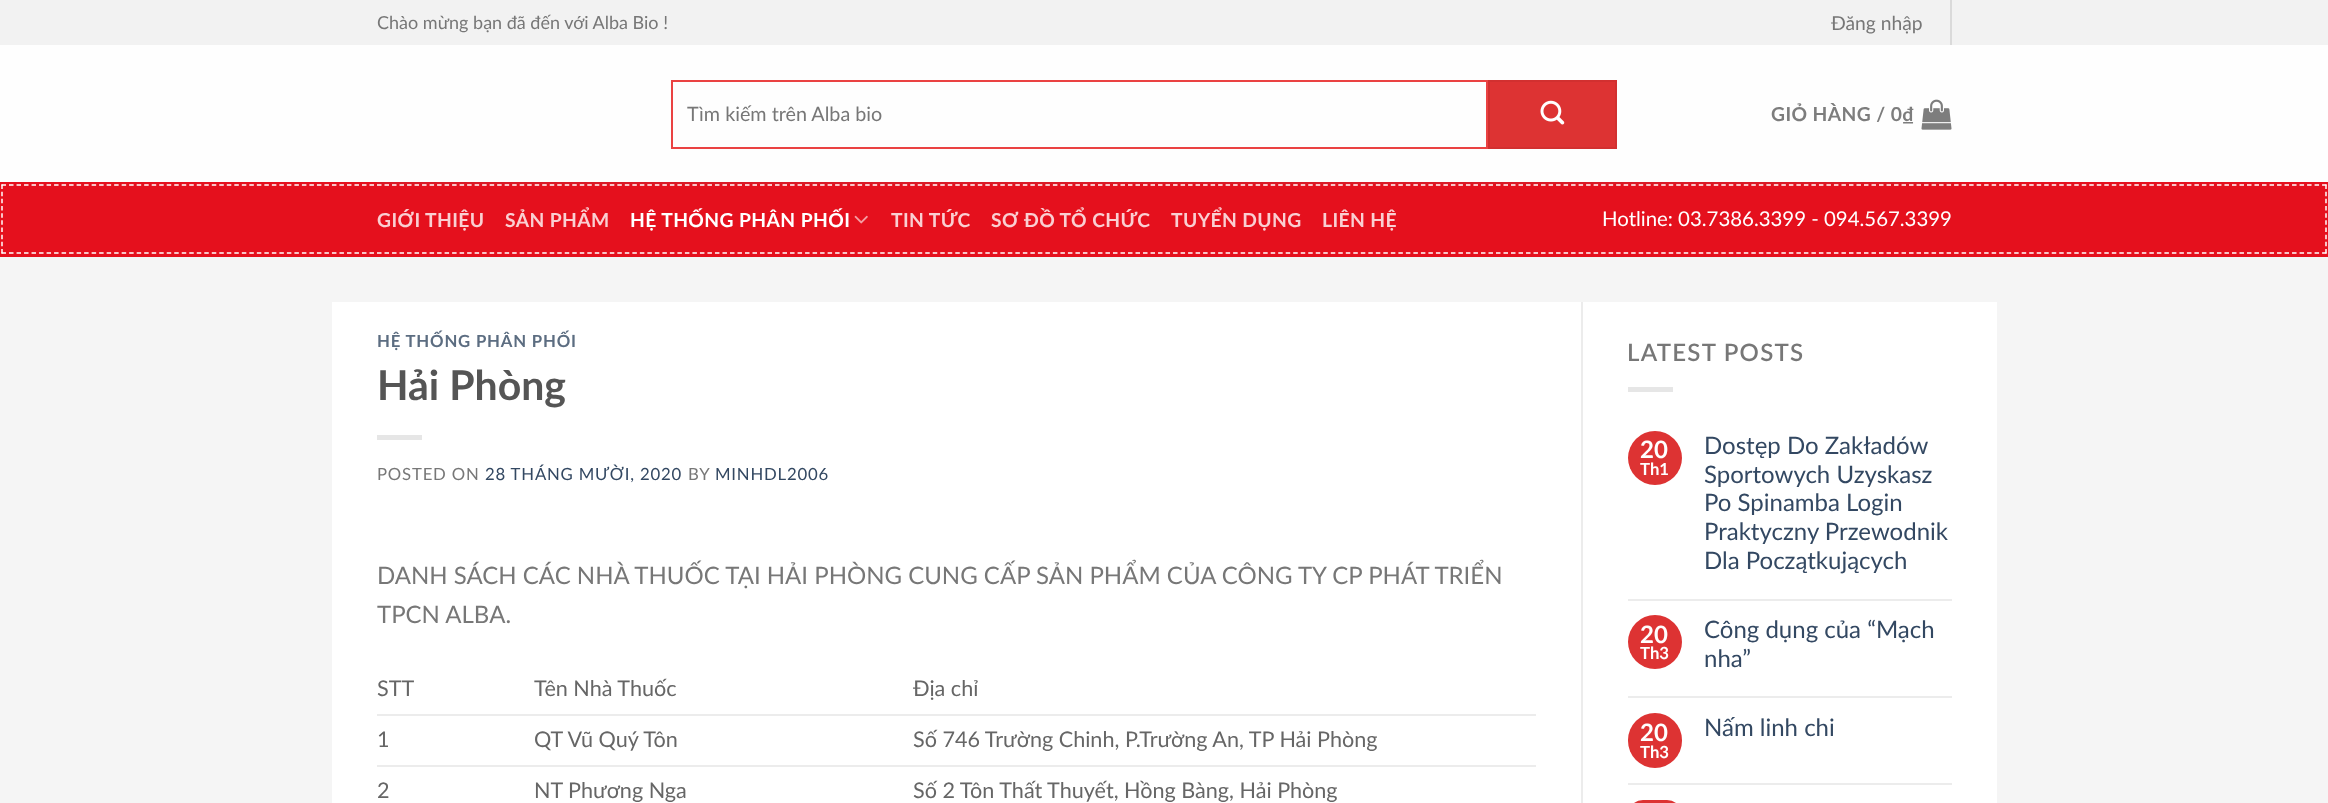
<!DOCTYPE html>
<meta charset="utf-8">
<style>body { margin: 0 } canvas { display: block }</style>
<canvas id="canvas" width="2328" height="803"></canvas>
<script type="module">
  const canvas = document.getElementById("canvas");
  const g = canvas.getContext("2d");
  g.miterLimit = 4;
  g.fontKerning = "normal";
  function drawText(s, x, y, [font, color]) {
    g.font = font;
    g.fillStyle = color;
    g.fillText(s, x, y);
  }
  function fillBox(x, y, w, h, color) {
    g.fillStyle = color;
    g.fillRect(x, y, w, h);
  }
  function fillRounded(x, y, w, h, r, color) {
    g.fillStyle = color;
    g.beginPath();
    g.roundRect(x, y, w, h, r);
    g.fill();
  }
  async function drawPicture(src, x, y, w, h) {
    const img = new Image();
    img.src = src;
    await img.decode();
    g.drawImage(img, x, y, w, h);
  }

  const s1 = ["18px Lato", "#777777"];
  const s2 = ["19.25px Lato", "#777777"];
  const s3 = ["19.75px Lato", "#777777"];
  const s4 = ["bold 19.25px Lato", "#7D7D7D"];
  const s5 = ["bold 19.25px Lato", "#FACFD2"];
  const s6 = ["bold 19.25px Lato", "#FFFFFF"];
  const s7 = ["20.4px Lato", "#FFFFFF"];
  const s8 = ["bold 16.75px Lato", "#5C6D81"];
  const s9 = ["bold 41px Lato", "#555555"];
  const s10 = ["16.75px Lato", "#777777"];
  const s11 = ["16.75px Lato", "#334862"];
  const s12 = ["24px Lato", "#777777"];
  const s13 = ["21.6px Lato", "#666666"];
  const s14 = ["600 24px Lato", "#777777"];
  const s15 = ["bold 24px Lato", "#FFFFFF"];
  const s16 = ["bold 16.75px Lato", "#FFFFFF"];
  const s17 = ["24px Lato", "#334862"];

  fillBox(0, 0, 2328, 803, "#F5F5F5");
  fillBox(0, 45, 2328, 137, "#FEFEFE");
  fillBox(0, 0, 2328, 45, "#F2F2F2");
  drawText("Chào mừng bạn đã đến với Alba Bio !", 377, 29, s1);
  drawText("Đăng nhập", 1831, 30, s2);
  fillBox(1950, 0, 2, 45, "#DADADA");
  g.strokeStyle = "#EA4242";
  g.lineWidth = 2;
  g.strokeRect(672, 81, 815, 67);
  drawText("Tìm kiếm trên Alba bio", 687, 121, s3);
  g.fillStyle = "#DD3333";
  g.beginPath();
  g.rect(1489, 81, 127, 67);
  g.fill();
  g.strokeStyle = "#D23030";
  g.stroke();
  await drawPicture("pic1.png", 1540, 100, 25, 25);
  g.letterSpacing = "0.4px";
  drawText("GIỎ HÀNG / 0₫", 1771, 121, s4);
  await drawPicture("pic2.png", 1921, 99, 31, 31);
  fillBox(0, 182, 2328, 75, "#E5101D");
  fillBox(377, 182, 1575, 2, "#DA1A26");
  g.beginPath();
  g.moveTo(1.5, 185);
  g.lineTo(2326.5, 185);
  g.strokeStyle = "#FFFFFF";
  g.lineWidth = 1.5;
  g.setLineDash([4.5, 3.01]);
  g.stroke();
  g.beginPath();
  g.moveTo(2326, 184.5);
  g.lineTo(2326, 253.5);
  g.setLineDash([4.5, 2.67]);
  g.stroke();
  g.beginPath();
  g.moveTo(1.5, 253);
  g.lineTo(2326.5, 253);
  g.setLineDash([4.5, 3.01]);
  g.stroke();
  g.beginPath();
  g.moveTo(2, 184.5);
  g.lineTo(2, 253.5);
  g.setLineDash([4.5, 2.67]);
  g.stroke();
  drawText("GIỚI THIỆU", 377, 227, s5);
  drawText("SẢN PHẨM", 505, 227, s5);
  drawText("HỆ THỐNG PHÂN PHỐI", 630, 227, s6);
  await drawPicture("pic3.png", 854, 215, 14, 9);
  drawText("TIN TỨC", 891, 227, s5);
  drawText("SƠ ĐỒ TỔ CHỨC", 991, 227, s5);
  drawText("TUYỂN DỤNG", 1171, 227, s5);
  drawText("LIÊN HỆ", 1322, 227, s5);
  g.letterSpacing = "0px";
  drawText("Hotline: 03.7386.3399 - 094.567.3399", 1602, 226, s7);
  fillBox(332, 302, 1249, 501, "#FFFFFF");
  g.letterSpacing = "0.8px";
  drawText("HỆ THỐNG PHÂN PHỐI", 377, 347, s8);
  g.letterSpacing = "0px";
  drawText("Hải Phòng", 377, 400, s9);
  fillBox(377, 435, 45, 5, "#E6E6E6");
  g.letterSpacing = "0.8px";
  drawText("POSTED ON", 377, 480, s10);
  drawText("28 THÁNG MƯỜI, 2020", 485, 480, s11);
  drawText("BY", 688, 480, s10);
  drawText("MINHDL2006", 715, 480, s11);
  g.letterSpacing = "0px";
  drawText("DANH SÁCH CÁC NHÀ THUỐC TẠI HẢI PHÒNG CUNG CẤP SẢN PHẨM CỦA CÔNG TY CP PHÁT TRIỂN", 377, 584, s12);
  drawText("TPCN ALBA.", 377, 623, s12);
  fillBox(377, 714, 1159, 2, "#ECECEC");
  drawText("STT", 377, 696, s13);
  drawText("Tên Nhà Thuốc", 534, 696, s13);
  drawText("Địa chỉ", 913, 696, s13);
  fillBox(377, 765, 1159, 2, "#ECECEC");
  drawText("1", 377, 747, s13);
  drawText("QT Vũ Quý Tôn", 534, 747, s13);
  drawText("Số 746 Trường Chinh, P.Trường An, TP Hải Phòng", 913, 747, s13);
  drawText("2", 377, 798, s13);
  drawText("NT Phương Nga", 534, 798, s13);
  drawText("Số 2 Tôn Thất Thuyết, Hồng Bàng, Hải Phòng", 913, 798, s13);
  fillBox(1583, 302, 414, 501, "#FFFFFF");
  fillBox(1581, 302, 2, 501, "#ECECEC");
  g.letterSpacing = "1.25px";
  drawText("LATEST POSTS", 1627, 361, s14);
  fillBox(1628, 387, 45, 5, "#E6E6E6");
  g.fillStyle = "#DD3333";
  g.beginPath();
  g.arc(1655, 458, 27, 0, Math.PI * 2);
  g.fill();
  g.letterSpacing = "0px";
  drawText("20", 1640, 458, s15);
  drawText("Th1", 1640, 475, s16);
  drawText("Dostęp Do Zakładów", 1704, 454, s17);
  drawText("Sportowych Uzyskasz", 1704, 483, s17);
  drawText("Po Spinamba Login", 1704, 511, s17);
  drawText("Praktyczny Przewodnik", 1704, 540, s17);
  drawText("Dla Początkujących", 1704, 569, s17);
  fillBox(1628, 599, 324, 2, "#ECECEC");
  g.fillStyle = "#DD3333";
  g.beginPath();
  g.arc(1655, 642, 27, 0, Math.PI * 2);
  g.fill();
  drawText("20", 1640, 643, s15);
  drawText("Th3", 1640, 659, s16);
  drawText("Công dụng của “Mạch", 1704, 638, s17);
  drawText("nha”", 1704, 667, s17);
  fillBox(1628, 696, 324, 2, "#ECECEC");
  fillRounded(1628, 713, 54, 55, 27, "#DD3333");
  drawText("20", 1640, 741, s15);
  drawText("Th3", 1640, 758, s16);
  drawText("Nấm linh chi", 1704, 736, s17);
  fillBox(1628, 783, 324, 2, "#ECECEC");
  fillRounded(1628, 800, 54, 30, 27, "#DD3333");
</script>
